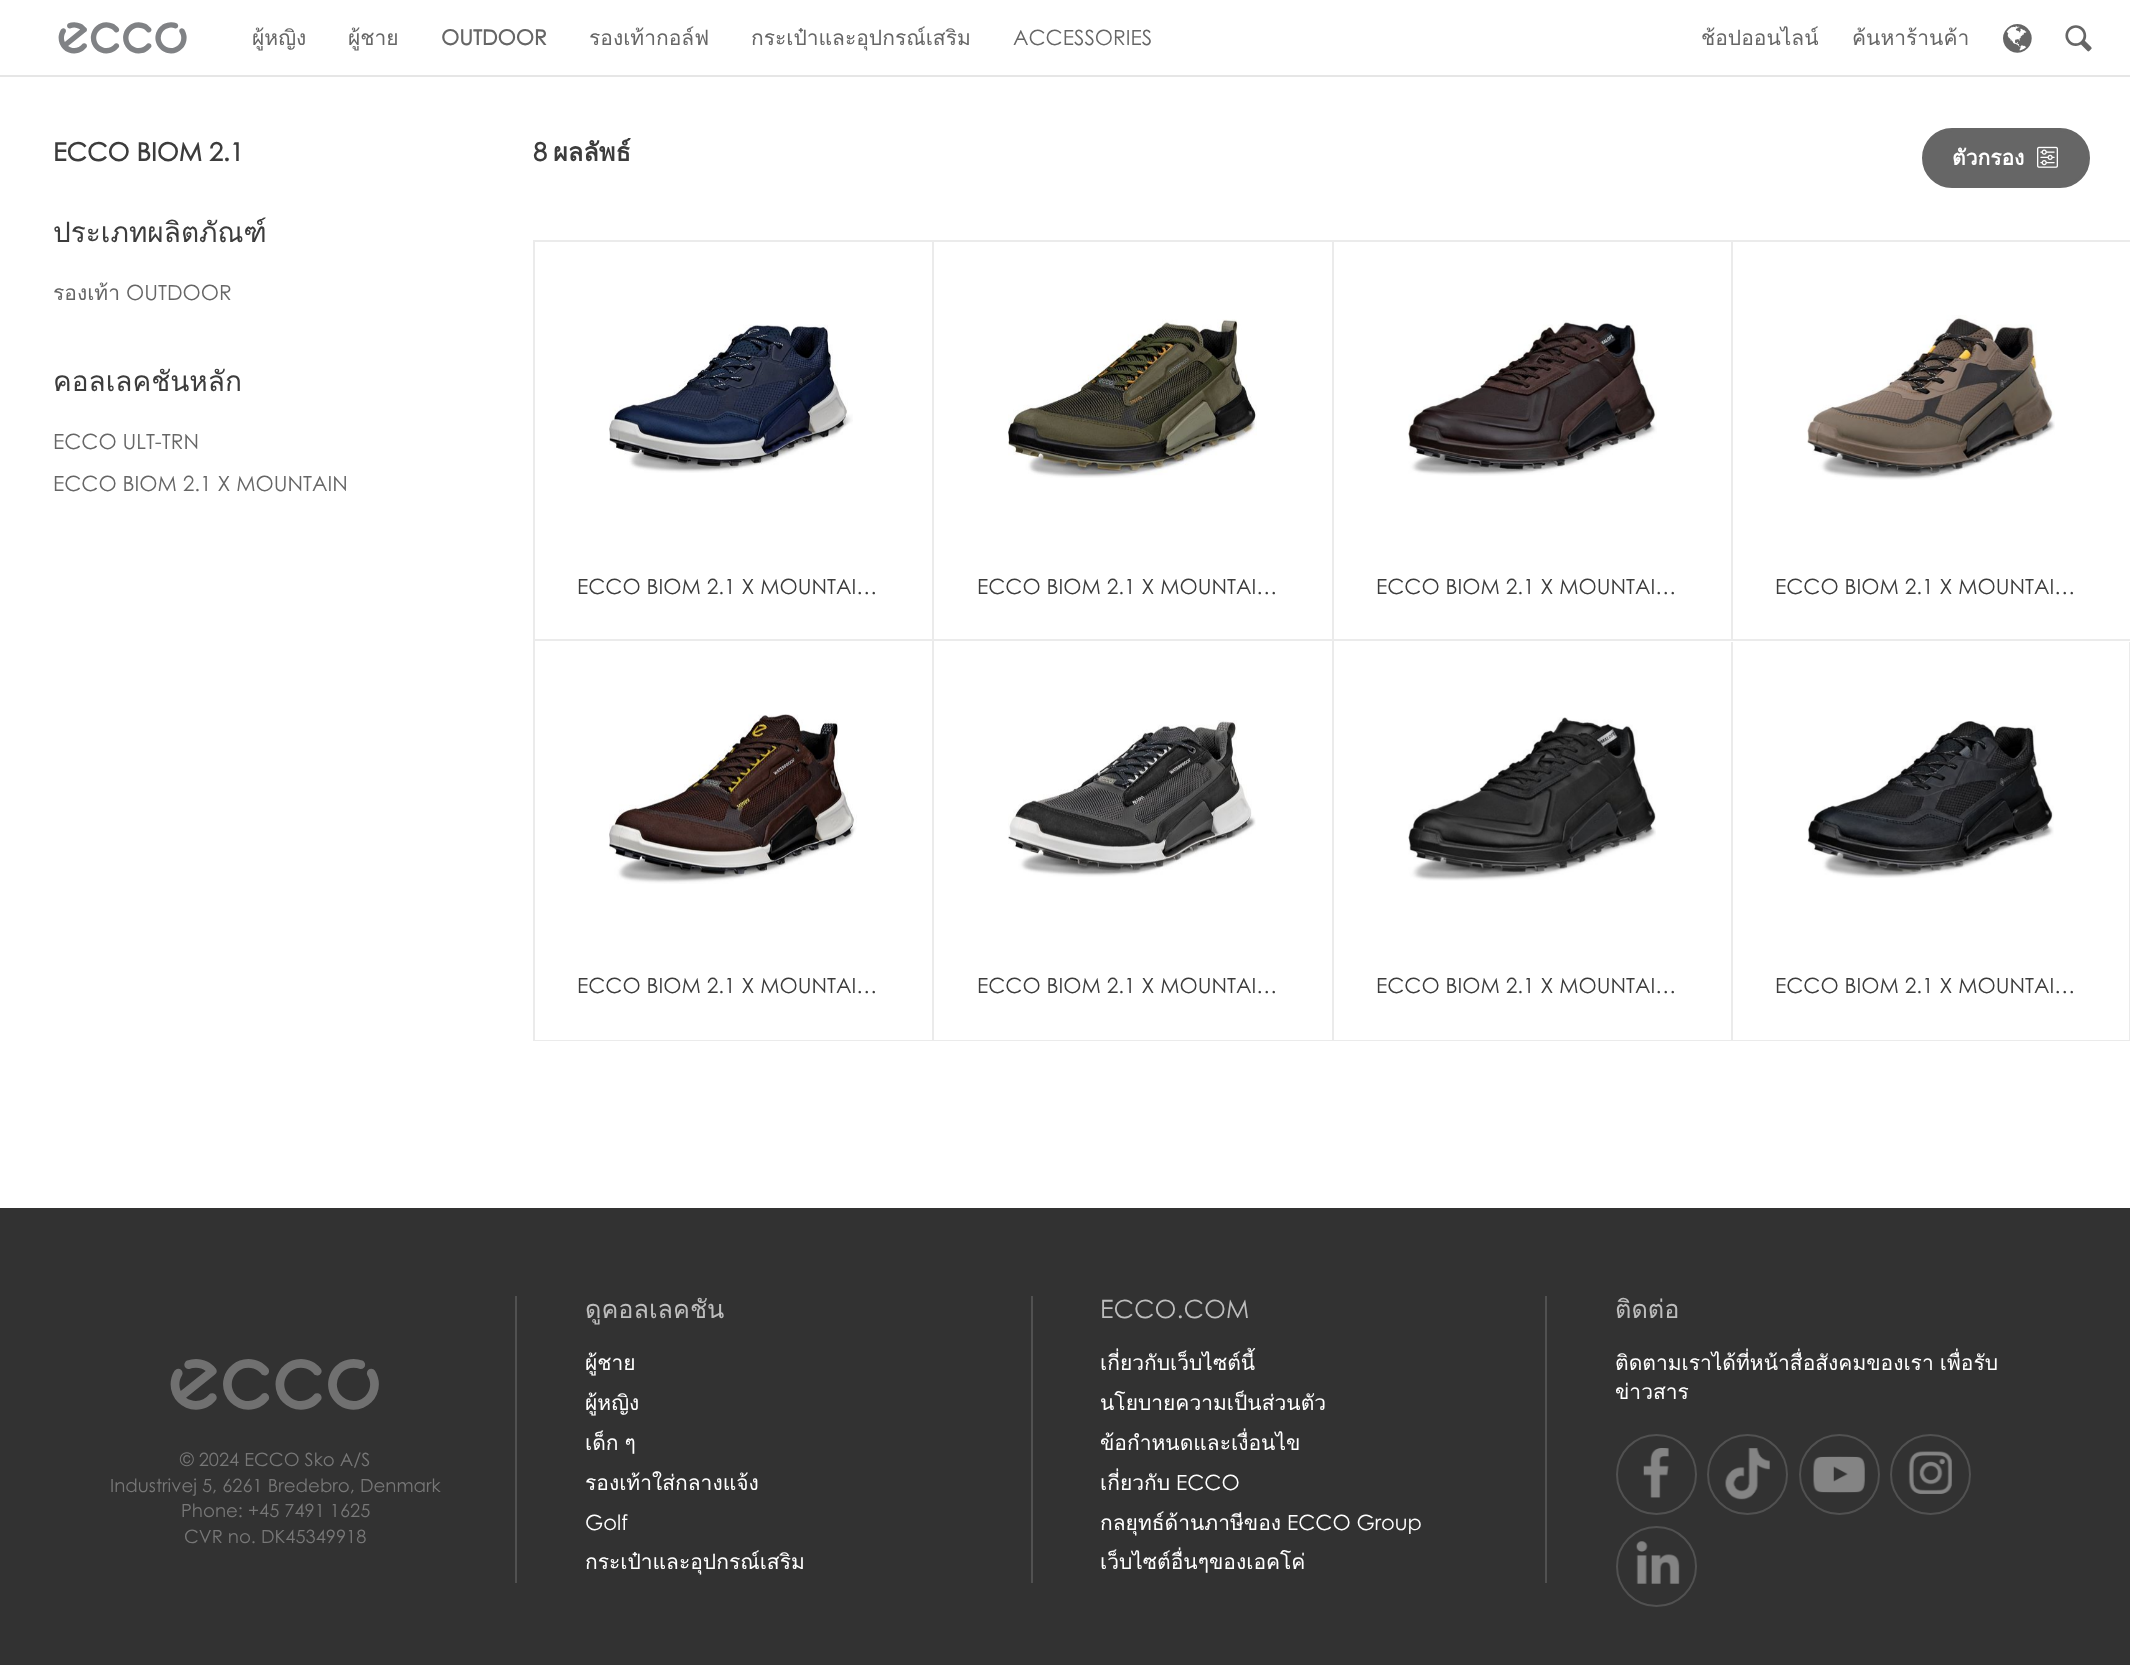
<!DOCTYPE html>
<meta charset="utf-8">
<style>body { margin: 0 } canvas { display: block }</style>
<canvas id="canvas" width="2130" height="1665"></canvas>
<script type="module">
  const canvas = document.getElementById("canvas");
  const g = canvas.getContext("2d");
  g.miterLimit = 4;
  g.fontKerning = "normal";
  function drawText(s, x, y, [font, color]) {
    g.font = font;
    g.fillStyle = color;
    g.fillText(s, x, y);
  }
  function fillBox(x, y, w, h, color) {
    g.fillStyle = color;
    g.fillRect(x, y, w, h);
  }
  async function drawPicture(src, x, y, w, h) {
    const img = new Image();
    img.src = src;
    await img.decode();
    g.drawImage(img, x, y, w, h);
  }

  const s1 = ["33.5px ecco", "#808285"];
  const s2 = ["21px Loma", "#666666"];
  const s3 = ["bold 21px Century Gothic", "#666666"];
  const s4 = ["21px Century Gothic", "#666666"];
  const s5 = ["33.5px ecco", "#666666"];
  const s6 = ["27px ecco", "#666666"];
  const s7 = ["bold 25.25px Century Gothic", "#3C3C3C"];
  const s8 = ["28px Loma", "#3C3C3C"];
  const s9 = ["bold 25.25px Loma", "#3C3C3C"];
  const s10 = ["bold 21px Loma", "#FFFFFF"];
  const s11 = ["21px Century Gothic", "#3C3C3C"];
  const s12 = ["54.5px ecco", "#707070"];
  const s13 = ["18.25px Century Gothic", "#777777"];
  const s14 = ["25.25px Loma", "#BDBDBD"];
  const s15 = ["21px Loma", "#FFFFFF"];
  const s16 = ["21px Century Gothic", "#FFFFFF"];
  const s17 = ["25.25px Century Gothic", "#BDBDBD"];

  fillBox(0, 0, 2130, 1665, "#FFFFFF");
  fillBox(0, 75, 2130, 2, "#E6E6E6");
  drawText("!", 57, 53, s1);
  drawText("ผู้หญิง", 252, 45, s2);
  drawText("ผู้ชาย", 348, 45, s2);
  drawText("OUTDOOR", 441, 45, s3);
  drawText("รองเท้ากอล์ฟ", 589, 45, s2);
  drawText("กระเป๋าและอุปกรณ์เสริม", 751, 45, s2);
  drawText("ACCESSORIES", 1013, 45, s4);
  drawText("ช้อปออนไลน์", 1701, 45, s2);
  drawText("ค้นหาร้านค้า", 1852, 45, s2);
  drawText("%", 2003, 53, s5);
  drawText("#", 2065, 50, s6);
  drawText("ECCO BIOM 2.1", 53, 161, s7);
  drawText("ประเภทผลิตภัณฑ์", 53, 242, s8);
  drawText("รองเท้า", 53, 300, s2);
  drawText("OUTDOOR", 126, 300, s4);
  drawText("คอลเลคชันหลัก", 53, 391, s8);
  drawText("ECCO ULT-TRN", 53, 449, s4);
  drawText("ECCO BIOM 2.1 X MOUNTAIN", 53, 491, s4);
  drawText("8", 533, 161, s7);
  drawText("ผลลัพธ์", 553, 161, s9);
  g.fillStyle = "#666666";
  g.beginPath();
  g.roundRect(1923.5, 129.5, 165, 57, 28.5);
  g.fill();
  g.strokeStyle = "#666666";
  g.lineWidth = 3;
  g.stroke();
  drawText("ตัวกรอง", 1952, 165, s10);
  await drawPicture("pic1.png", 2037, 146, 21, 22);
  fillBox(533, 240, 1597, 2, "#EBEBEB");
  fillBox(533, 639, 1597, 2, "#EBEBEB");
  fillBox(533, 242, 2, 399, "#EBEBEB");
  await drawPicture("pic2.png", 609, 324, 244, 149);
  drawText("ECCO BIOM 2.1 X MOUNTAI…", 577, 594, s11);
  fillBox(932, 242, 2, 399, "#EBEBEB");
  await drawPicture("pic3.png", 1008, 319, 249, 159);
  drawText("ECCO BIOM 2.1 X MOUNTAI…", 977, 594, s11);
  fillBox(1332, 242, 2, 399, "#EBEBEB");
  await drawPicture("pic4.png", 1408, 320, 249, 156);
  drawText("ECCO BIOM 2.1 X MOUNTAI…", 1376, 594, s11);
  fillBox(1731, 242, 2, 399, "#EBEBEB");
  await drawPicture("pic5.png", 1807, 315, 248, 165);
  drawText("ECCO BIOM 2.1 X MOUNTAI…", 1775, 594, s11);
  fillBox(533, 1040, 1596, 1, "#EBEBEB");
  fillBox(533, 641, 2, 400, "#EBEBEB");
  await drawPicture("pic6.png", 609, 714, 248, 170);
  drawText("ECCO BIOM 2.1 X MOUNTAI…", 577, 993, s11);
  fillBox(932, 641, 2, 400, "#EBEBEB");
  await drawPicture("pic7.png", 1008, 720, 248, 157);
  drawText("ECCO BIOM 2.1 X MOUNTAI…", 977, 993, s11);
  fillBox(1332, 641, 2, 400, "#EBEBEB");
  await drawPicture("pic8.png", 1408, 717, 248, 164);
  drawText("ECCO BIOM 2.1 X MOUNTAI…", 1376, 993, s11);
  fillBox(2129, 642, 1, 399, "#EBEBEB");
  fillBox(1731, 642, 2, 399, "#EBEBEB");
  await drawPicture("pic9.png", 1807, 721, 247, 157);
  drawText("ECCO BIOM 2.1 X MOUNTAI…", 1775, 993, s11);
  fillBox(0, 1208, 2130, 457, "#323232");
  fillBox(515, 1296, 2, 287, "#515151");
  fillBox(1031, 1296, 2, 287, "#515151");
  fillBox(1545, 1296, 2, 287, "#515151");
  drawText("!", 168, 1409, s12);
  drawText("© 2024 ECCO Sko A/S", 180, 1466, s13);
  drawText("Industrivej 5, 6261 Bredebro, Denmark", 110, 1492, s13);
  drawText("Phone: +45 7491 1625", 181, 1517, s13);
  drawText("CVR no. DK45349918", 184, 1543, s13);
  drawText("ดูคอลเลคชัน", 585, 1318, s14);
  drawText("ผู้ชาย", 585, 1370, s15);
  drawText("ผู้หญิง", 585, 1410, s15);
  g.wordSpacing = "-1px";
  drawText("เด็ก ๆ", 585, 1450, s15);
  g.wordSpacing = "0px";
  drawText("รองเท้าใส่กลางแจ้ง", 585, 1490, s15);
  drawText("Golf", 585, 1530, s16);
  drawText("กระเป๋าและอุปกรณ์เสริม", 585, 1569, s15);
  drawText("ECCO.COM", 1100, 1318, s17);
  drawText("เกี่ยวกับเว็บไซต์นี้", 1100, 1370, s15);
  drawText("นโยบายความเป็นส่วนตัว", 1100, 1410, s15);
  drawText("ข้อกำหนดและเงื่อนไข", 1100, 1450, s15);
  drawText("เกี่ยวกับ", 1100, 1490, s15);
  drawText("ECCO", 1176, 1490, s16);
  drawText("กลยุทธ์ด้านภาษีของ", 1100, 1530, s15);
  drawText("ECCO Group", 1287, 1530, s16);
  drawText("เว็บไซต์อื่นๆของเอคโค่", 1100, 1569, s15);
  drawText("ติดต่อ", 1615, 1318, s14);
  g.wordSpacing = "-1px";
  drawText("ติดตามเราได้ที่หน้าสื่อสังคมของเรา เพื่อรับ", 1615, 1370, s15);
  g.wordSpacing = "0px";
  drawText("ข่าวสาร", 1615, 1399, s15);
  g.beginPath();
  g.arc(1656.5, 1474.5, 39.5, 0, Math.PI * 2);
  g.strokeStyle = "#515151";
  g.lineWidth = 2;
  g.stroke();
  await drawPicture("pic10.png", 1643, 1448, 26, 50);
  g.beginPath();
  g.arc(1747.5, 1474.5, 39.5, 0, Math.PI * 2);
  g.stroke();
  await drawPicture("pic11.png", 1725, 1448, 45, 52);
  g.beginPath();
  g.arc(1839.5, 1474.5, 39.5, 0, Math.PI * 2);
  g.stroke();
  await drawPicture("pic12.png", 1813, 1456, 52, 37);
  g.beginPath();
  g.arc(1930.5, 1474.5, 39.5, 0, Math.PI * 2);
  g.stroke();
  await drawPicture("pic13.png", 1908, 1451, 44, 43);
  g.beginPath();
  g.arc(1656.5, 1566.5, 39.5, 0, Math.PI * 2);
  g.stroke();
  await drawPicture("pic14.png", 1636, 1541, 44, 43);
</script>
